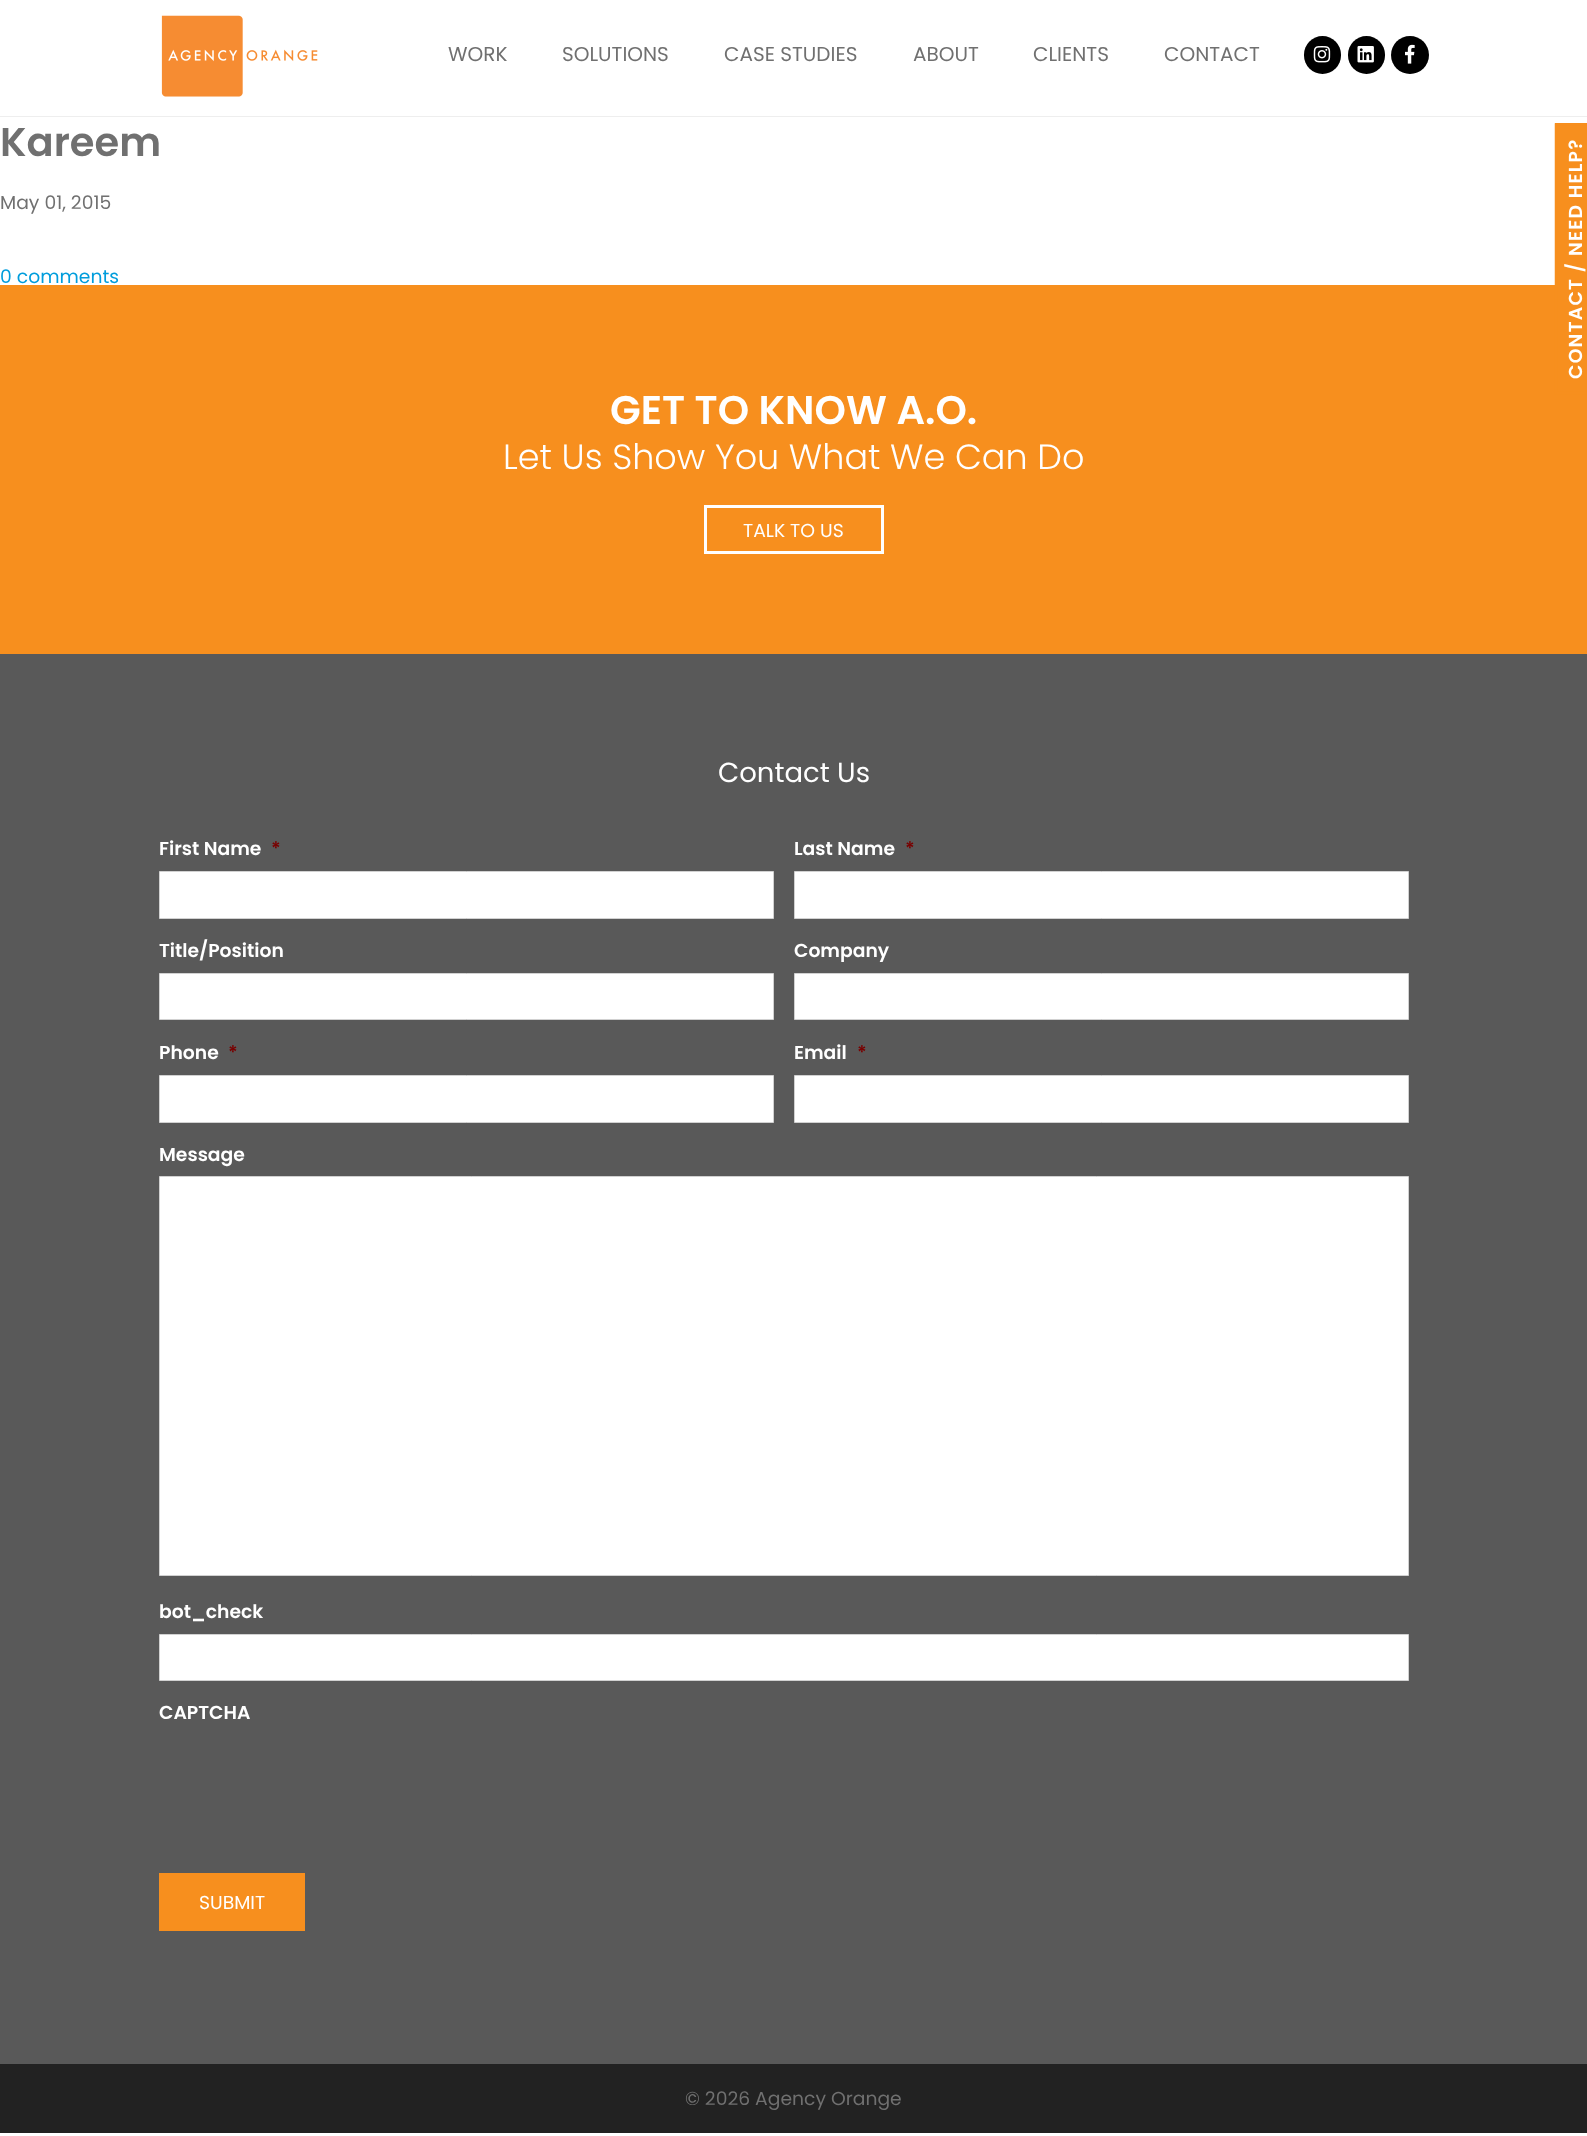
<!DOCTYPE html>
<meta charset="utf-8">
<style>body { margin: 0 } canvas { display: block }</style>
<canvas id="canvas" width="1587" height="2136"></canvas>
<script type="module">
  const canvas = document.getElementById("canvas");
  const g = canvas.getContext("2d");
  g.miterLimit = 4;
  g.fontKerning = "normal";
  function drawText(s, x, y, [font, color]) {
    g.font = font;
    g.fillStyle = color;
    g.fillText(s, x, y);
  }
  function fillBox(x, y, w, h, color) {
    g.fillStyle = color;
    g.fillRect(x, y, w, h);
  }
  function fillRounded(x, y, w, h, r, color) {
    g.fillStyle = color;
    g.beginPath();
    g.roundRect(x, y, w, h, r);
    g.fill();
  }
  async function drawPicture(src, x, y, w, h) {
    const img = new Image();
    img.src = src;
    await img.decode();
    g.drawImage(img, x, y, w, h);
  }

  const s1 = ["20px Poppins", "#707070"];
  const s2 = ["600 40px Poppins", "#707070"];
  const s3 = ["18.75px Poppins", "#707070"];
  const s4 = ["18.75px Poppins", "#009DDC"];
  const s5 = ["600 40px Poppins", "#FFFFFF"];
  const s6 = ["300 35px Poppins", "#FFFFFF"];
  const s7 = ["18.75px Poppins", "#FFFFFF"];
  const s8 = ["27.5px Poppins", "#FFFFFF"];
  const s9 = ["600 18.75px Poppins", "#FFFFFF"];
  const s10 = ["600 18.75px Poppins", "#790000"];

  fillBox(0, 0, 1587, 2136, "#FFFFFF");
  fillBox(0, 116, 1587, 1, "#EEEEEE");
  await drawPicture("pic1.png", 161, 15, 157, 82);
  drawText("WORK", 448, 61, s1);
  drawText("SOLUTIONS", 562, 61, s1);
  drawText("CASE STUDIES", 724, 61, s1);
  drawText("ABOUT", 913, 61, s1);
  drawText("CLIENTS", 1033, 61, s1);
  drawText("CONTACT", 1164, 61, s1);
  fillRounded(1304, 36, 37, 38, 18.5, "#000000");
  await drawPicture("pic2.png", 1313, 46, 18, 17);
  fillRounded(1348, 36, 37, 38, 18.5, "#000000");
  await drawPicture("pic3.png", 1357, 46, 17, 17);
  g.beginPath();
  g.arc(1410, 55, 19, 0, Math.PI * 2);
  g.fill();
  await drawPicture("pic4.png", 1405, 44, 10, 20);
  drawText("Kareem", 0, 156, s2);
  drawText("May 01, 2015", 0, 209, s3);
  drawText("0 comments", 0, 283, s4);
  fillBox(1555, 123, 32, 162, "#F78F1E");
  fillBox(0, 285, 1587, 369, "#F78F1E");
  g.beginPath();
  g.moveTo(1556, 393);
  g.lineTo(1556, 124.5);
  g.lineTo(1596, 124.5);
  g.lineTo(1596, 393);
  g.closePath();
  g.strokeStyle = "#F78F1E";
  g.lineWidth = 2.5;
  g.stroke();
  g.letterSpacing = "1.25px";
  g.font = "600 18.75px Poppins";
  g.fillStyle = "#FFFFFF";
  g.save();
  g.translate(1582, 379);
  g.rotate(-90 * Math.PI / 180);
  g.fillText("CONTACT / NEED HELP?", 0, 0);
  g.restore();
  g.letterSpacing = "0px";
  drawText("GET TO KNOW A.O.", 610, 424, s5);
  drawText("Let Us Show You What We Can Do", 503, 469, s6);
  g.strokeStyle = "#FFFFFF";
  g.lineWidth = 3;
  g.strokeRect(705.5, 506.5, 177, 46);
  drawText("TALK TO US", 743, 537, s7);
  fillBox(0, 654, 1587, 1410, "#595959");
  drawText("Contact Us", 718, 782, s8);
  drawText("First Name", 159, 855, s9);
  drawText("*", 271, 855, s10);
  g.fillStyle = "#FFFFFF";
  g.beginPath();
  g.rect(159.5, 871.5, 614, 47);
  g.fill();
  g.strokeStyle = "#D1D1D1";
  g.lineWidth = 1;
  g.stroke();
  drawText("Last Name", 794, 855, s9);
  drawText("*", 905, 855, s10);
  g.fillStyle = "#FFFFFF";
  g.beginPath();
  g.rect(794.5, 871.5, 614, 47);
  g.fill();
  g.stroke();
  drawText("Title/Position", 159, 957, s9);
  g.beginPath();
  g.rect(159.5, 973.5, 614, 46);
  g.fill();
  g.stroke();
  drawText("Company", 794, 957, s9);
  g.beginPath();
  g.rect(794.5, 973.5, 614, 46);
  g.fill();
  g.stroke();
  drawText("Phone", 159, 1059, s9);
  drawText("*", 228, 1059, s10);
  g.fillStyle = "#FFFFFF";
  g.beginPath();
  g.rect(159.5, 1075.5, 614, 47);
  g.fill();
  g.stroke();
  drawText("Email", 794, 1059, s9);
  drawText("*", 857, 1059, s10);
  g.fillStyle = "#FFFFFF";
  g.beginPath();
  g.rect(794.5, 1075.5, 614, 47);
  g.fill();
  g.stroke();
  drawText("Message", 159, 1161, s9);
  g.beginPath();
  g.rect(159.5, 1176.5, 1249, 399);
  g.fill();
  g.stroke();
  drawText("bot_check", 159, 1618, s9);
  g.beginPath();
  g.rect(159.5, 1634.5, 1249, 46);
  g.fill();
  g.stroke();
  drawText("CAPTCHA", 159, 1719, s9);
  fillBox(159, 1873, 146, 58, "#F78F1E");
  drawText("SUBMIT", 199, 1909, s7);
  fillBox(0, 2064, 1587, 69, "#222222");
  drawText("© 2026 Agency Orange", 685, 2105, s3);
</script>
